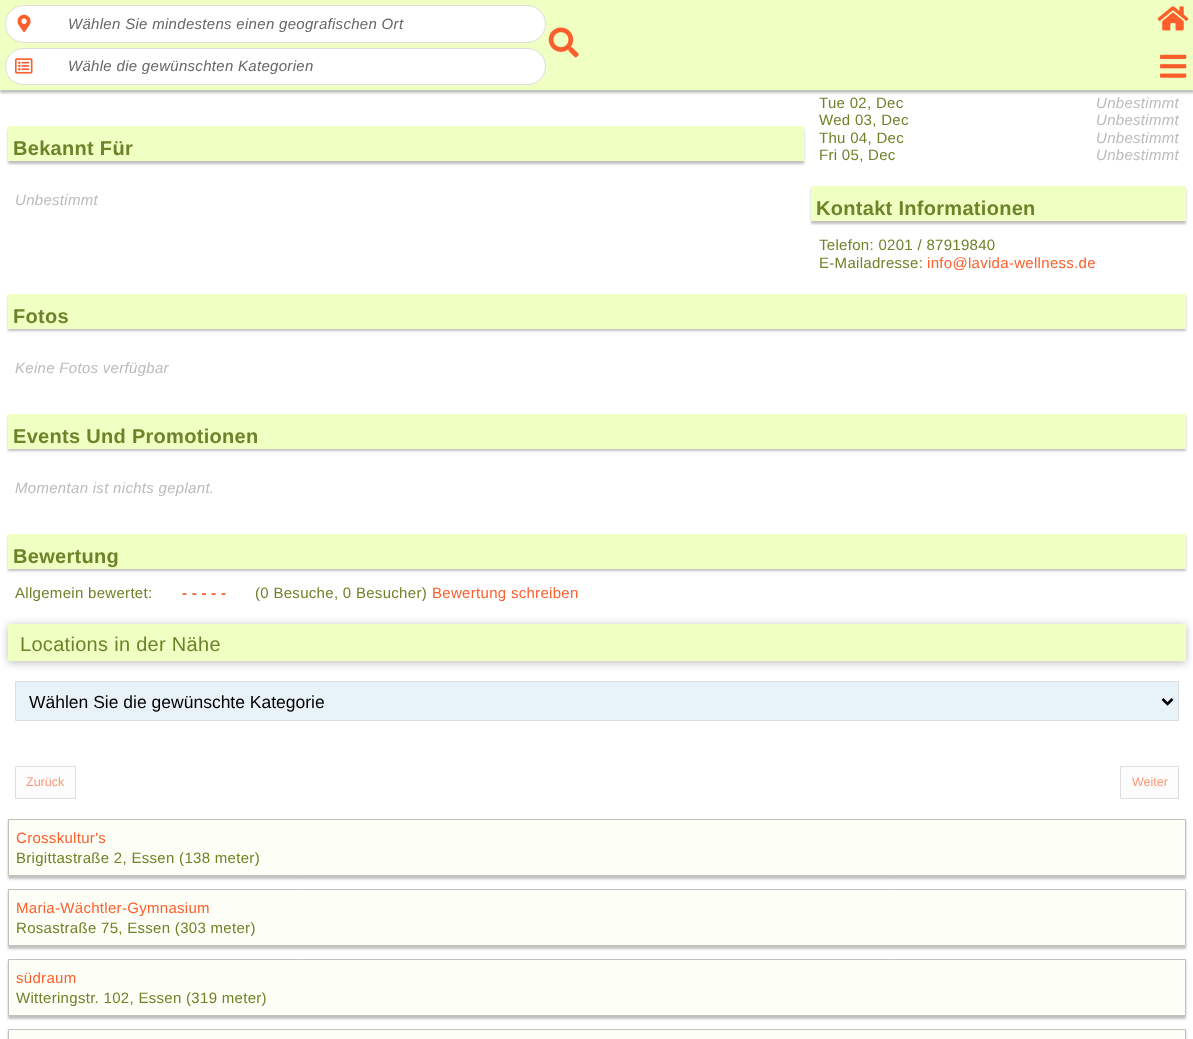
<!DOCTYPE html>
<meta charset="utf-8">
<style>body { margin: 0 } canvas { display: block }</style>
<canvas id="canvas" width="1193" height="1039"></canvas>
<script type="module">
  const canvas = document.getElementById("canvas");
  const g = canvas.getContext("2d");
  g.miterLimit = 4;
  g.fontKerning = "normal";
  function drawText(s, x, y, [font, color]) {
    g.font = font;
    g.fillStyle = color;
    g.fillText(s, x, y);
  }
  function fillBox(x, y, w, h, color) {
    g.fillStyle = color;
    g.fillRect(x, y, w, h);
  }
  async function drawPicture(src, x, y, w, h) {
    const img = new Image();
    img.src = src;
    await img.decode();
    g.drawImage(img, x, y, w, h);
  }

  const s1 = ["italic 15px Liberation Sans", "#666666"];
  const s2 = ["bold 20px Liberation Sans", "#6E8228"];
  const s3 = ["italic 15px Liberation Sans", "#BBBBBB"];
  const s4 = ["15px Liberation Sans", "#6E8228"];
  const s5 = ["15px Liberation Sans", "#FC5F2B"];
  const s6 = ["bold 15px Liberation Sans", "#FC5F2B"];
  const s7 = ["20px Liberation Sans", "#6E8228"];
  const s8 = ["17.5px Liberation Sans", "#000000"];
  const s9 = ["12.5px Liberation Sans", "#FD9775"];

  fillBox(0, 0, 1193, 1039, "#FFFFFF");
  g.fillStyle = "rgba(32, 33, 36, 0.28)";
  g.filter = "blur(1px)";
  g.beginPath();
  g.rect(0, 3, 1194, 90);
  g.fill();
  g.filter = "none";
  fillBox(0, 0, 1193, 90, "#F0FFC2");
  g.fillStyle = "#FFFFFF";
  g.beginPath();
  g.roundRect(5.5, 5.5, 540, 37, 18.5);
  g.fill();
  g.strokeStyle = "#DDDDDD";
  g.stroke();
  await drawPicture("pic1.png", 17, 14, 14, 19);
  g.letterSpacing = "0.3px";
  drawText("Wählen Sie mindestens einen geografischen Ort", 68, 29, s1);
  g.fillStyle = "#FFFFFF";
  g.beginPath();
  g.roundRect(5.5, 48.5, 540, 36, 18);
  g.fill();
  g.stroke();
  await drawPicture("pic2.png", 15, 58, 18, 16);
  drawText("Wähle die gewünschten Kategorien", 68, 71, s1);
  await drawPicture("pic3.png", 548, 27, 31, 31);
  await drawPicture("pic4.png", 1157, 6, 32, 25);
  await drawPicture("pic5.png", 1160, 54, 27, 24);
  g.fillStyle = "rgba(32, 33, 36, 0.28)";
  g.filter = "blur(1px)";
  g.beginPath();
  g.rect(8, 129, 796, 35);
  g.fill();
  g.filter = "none";
  fillBox(8, 126, 796, 35, "#F0FFC2");
  drawText("Bekannt Für", 13, 155, s2);
  drawText("Unbestimmt", 15, 205, s3);
  drawText("Tue 02, Dec", 819, 108, s4);
  drawText("Wed 03, Dec", 819, 125, s4);
  drawText("Thu 04, Dec", 819, 143, s4);
  drawText("Fri 05, Dec", 819, 160, s4);
  drawText("Unbestimmt", 1096, 108, s3);
  drawText("Unbestimmt", 1096, 125, s3);
  drawText("Unbestimmt", 1096, 143, s3);
  drawText("Unbestimmt", 1096, 160, s3);
  g.fillStyle = "rgba(32, 33, 36, 0.28)";
  g.filter = "blur(1px)";
  g.beginPath();
  g.rect(811, 189, 375, 35);
  g.fill();
  g.filter = "none";
  fillBox(811, 186, 375, 35, "#F0FFC2");
  drawText("Kontakt Informationen", 816, 215, s2);
  drawText("Telefon: 0201 / 87919840", 819, 250, s4);
  drawText("E-Mailadresse:", 819, 268, s4);
  drawText("info@lavida-wellness.de", 927, 268, s5);
  g.fillStyle = "rgba(32, 33, 36, 0.28)";
  g.filter = "blur(1px)";
  g.beginPath();
  g.rect(8, 296, 1178, 35);
  g.fill();
  g.filter = "none";
  fillBox(8, 294, 1178, 35, "#F0FFC2");
  drawText("Fotos", 13, 323, s2);
  drawText("Keine Fotos verfügbar", 15, 373, s3);
  g.fillStyle = "rgba(32, 33, 36, 0.28)";
  g.filter = "blur(1px)";
  g.beginPath();
  g.rect(8, 416, 1178, 35);
  g.fill();
  g.filter = "none";
  fillBox(8, 414, 1178, 35, "#F0FFC2");
  drawText("Events Und Promotionen", 13, 443, s2);
  drawText("Momentan ist nichts geplant.", 15, 493, s3);
  g.fillStyle = "rgba(32, 33, 36, 0.28)";
  g.filter = "blur(1px)";
  g.beginPath();
  g.rect(8, 536, 1178, 35);
  g.fill();
  g.filter = "none";
  fillBox(8, 534, 1178, 35, "#F0FFC2");
  drawText("Bewertung", 13, 563, s2);
  drawText("Allgemein bewertet:", 15, 598, s4);
  drawText("- - - - -", 182, 598, s6);
  drawText("(0 Besuche, 0 Besucher)", 255, 598, s4);
  drawText("Bewertung schreiben", 432, 598, s5);
  g.fillStyle = "rgba(32, 33, 36, 0.28)";
  g.filter = "blur(4px)";
  g.beginPath();
  g.rect(8, 625, 1178, 38);
  g.fill();
  g.filter = "none";
  fillBox(8, 624, 1178, 37, "#F0FFC2");
  drawText("Locations in der Nähe", 20, 651, s7);
  g.fillStyle = "#E8F3F9";
  g.beginPath();
  g.rect(15.5, 681.5, 1163, 39);
  g.fill();
  g.stroke();
  g.beginPath();
  g.moveTo(1162.5, 699);
  g.lineTo(1167.5, 704);
  g.lineTo(1172.5, 699);
  g.strokeStyle = "#000000";
  g.lineWidth = 2.5;
  g.stroke();
  g.letterSpacing = "0px";
  drawText("Wählen Sie die gewünschte Kategorie", 29, 708, s8);
  g.fillStyle = "#FCFCFC";
  g.beginPath();
  g.rect(15.5, 766.5, 60, 32);
  g.fill();
  g.strokeStyle = "#DEDEDE";
  g.lineWidth = 1;
  g.stroke();
  drawText("Zurück", 26, 786, s9);
  g.fillStyle = "#FCFCFC";
  g.beginPath();
  g.rect(1120.5, 766.5, 58, 32);
  g.fill();
  g.stroke();
  drawText("Weiter", 1132, 786, s9);
  g.fillStyle = "rgba(32, 33, 36, 0.28)";
  g.filter = "blur(1px)";
  g.beginPath();
  g.rect(8, 821, 1178, 58);
  g.fill();
  g.filter = "none";
  g.fillStyle = "#FDFFF6";
  g.beginPath();
  g.rect(8.5, 819.5, 1177, 56);
  g.fill();
  g.strokeStyle = "#C0C2BB";
  g.stroke();
  g.letterSpacing = "0.3px";
  drawText("Crosskultur's", 16, 843, s5);
  drawText("Brigittastraße 2, Essen (138 meter)", 16, 863, s4);
  g.fillStyle = "rgba(32, 33, 36, 0.28)";
  g.filter = "blur(1px)";
  g.beginPath();
  g.rect(8, 891, 1178, 58);
  g.fill();
  g.filter = "none";
  g.fillStyle = "#FDFFF6";
  g.beginPath();
  g.rect(8.5, 889.5, 1177, 56);
  g.fill();
  g.stroke();
  drawText("Maria-Wächtler-Gymnasium", 16, 913, s5);
  drawText("Rosastraße 75, Essen (303 meter)", 16, 933, s4);
  g.fillStyle = "rgba(32, 33, 36, 0.28)";
  g.filter = "blur(1px)";
  g.beginPath();
  g.rect(8, 961, 1178, 58);
  g.fill();
  g.filter = "none";
  g.fillStyle = "#FDFFF6";
  g.beginPath();
  g.rect(8.5, 959.5, 1177, 56);
  g.fill();
  g.stroke();
  drawText("südraum", 16, 983, s5);
  drawText("Witteringstr. 102, Essen (319 meter)", 16, 1003, s4);
  g.fillStyle = "rgba(32, 33, 36, 0.28)";
  g.filter = "blur(1px)";
  g.beginPath();
  g.rect(8, 1031, 1178, 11);
  g.fill();
  g.filter = "none";
  g.fillStyle = "#FDFFF6";
  g.beginPath();
  g.rect(8.5, 1029.5, 1177, 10);
  g.fill();
  g.stroke();
</script>
